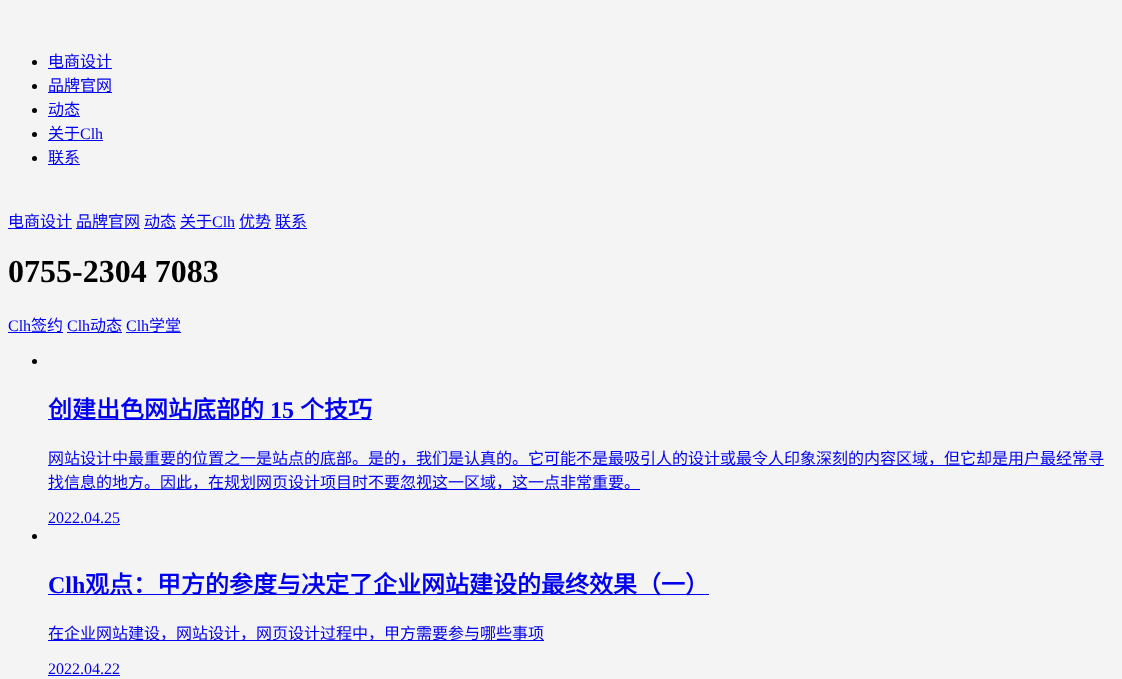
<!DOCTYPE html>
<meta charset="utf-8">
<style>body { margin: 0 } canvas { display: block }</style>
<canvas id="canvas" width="1122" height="679"></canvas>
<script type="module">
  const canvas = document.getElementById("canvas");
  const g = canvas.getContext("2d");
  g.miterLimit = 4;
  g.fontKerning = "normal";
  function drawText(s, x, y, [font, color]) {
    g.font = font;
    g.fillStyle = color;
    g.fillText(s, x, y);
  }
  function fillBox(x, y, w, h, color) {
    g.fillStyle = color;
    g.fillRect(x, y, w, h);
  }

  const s1 = ["16px Noto Sans CJK SC", "#0000EE"];
  const s2 = ["16px Liberation Serif", "#0000EE"];
  const s3 = ["bold 32px Liberation Serif", "#000000"];
  const s4 = ["bold 24px Noto Sans CJK SC", "#0000EE"];
  const s5 = ["bold 24px Liberation Serif", "#0000EE"];

  fillBox(0, 0, 1122, 679, "#F4F4F4");
  g.fillStyle = "#000000";
  g.beginPath();
  g.arc(34.5, 62.5, 2.5, 0, Math.PI * 2);
  g.fill();
  fillBox(48, 68, 64, 1, "#0000EE");
  drawText("电商设计", 48, 67, s1);
  g.fillStyle = "#000000";
  g.beginPath();
  g.arc(34.5, 86.5, 2.5, 0, Math.PI * 2);
  g.fill();
  fillBox(48, 92, 64, 1, "#0000EE");
  drawText("品牌官网", 48, 91, s1);
  g.fillStyle = "#000000";
  g.beginPath();
  g.arc(34.5, 110.5, 2.5, 0, Math.PI * 2);
  g.fill();
  fillBox(48, 116, 32, 1, "#0000EE");
  drawText("动态", 48, 115, s1);
  g.fillStyle = "#000000";
  g.beginPath();
  g.arc(34.5, 134.5, 2.5, 0, Math.PI * 2);
  g.fill();
  fillBox(48, 140, 55, 1, "#0000EE");
  drawText("关于", 48, 139, s1);
  drawText("Clh", 80, 139, s2);
  g.fillStyle = "#000000";
  g.beginPath();
  g.arc(34.5, 158.5, 2.5, 0, Math.PI * 2);
  g.fill();
  fillBox(48, 164, 32, 1, "#0000EE");
  drawText("联系", 48, 163, s1);
  fillBox(8, 228, 64, 1, "#0000EE");
  drawText("电商设计", 8, 227, s1);
  fillBox(76, 228, 64, 1, "#0000EE");
  drawText("品牌官网", 76, 227, s1);
  fillBox(144, 228, 32, 1, "#0000EE");
  drawText("动态", 144, 227, s1);
  fillBox(180, 228, 55, 1, "#0000EE");
  drawText("关于", 180, 227, s1);
  drawText("Clh", 212, 227, s2);
  fillBox(239, 228, 32, 1, "#0000EE");
  drawText("优势", 239, 227, s1);
  fillBox(275, 228, 32, 1, "#0000EE");
  drawText("联系", 275, 227, s1);
  drawText("0755-2304 7083", 8, 282, s3);
  drawText("Clh", 8, 331, s2);
  fillBox(8, 332, 55, 1, "#0000EE");
  drawText("签约", 31, 331, s1);
  drawText("Clh", 67, 331, s2);
  fillBox(67, 332, 55, 1, "#0000EE");
  drawText("动态", 90, 331, s1);
  drawText("Clh", 126, 331, s2);
  fillBox(126, 332, 55, 1, "#0000EE");
  drawText("学堂", 149, 331, s1);
  g.fillStyle = "#000000";
  g.beginPath();
  g.arc(34.5, 361.5, 2.5, 0, Math.PI * 2);
  g.fill();
  fillBox(48, 419, 324, 1, "#0000EE");
  drawText("创建出色网站底部的", 48, 418, s4);
  drawText("15", 270, 418, s5);
  drawText("个技巧", 300, 418, s4);
  fillBox(48, 465, 1056, 1, "#0000EE");
  drawText("网站设计中最重要的位置之一是站点的底部。是的，我们是认真的。它可能不是最吸引人的设计或最令人印象深刻的内容区域，但它却是用户最经常寻", 48, 464, s1);
  fillBox(48, 489, 592, 1, "#0000EE");
  drawText("找信息的地方。因此，在规划网页设计项目时不要忽视这一区域，这一点非常重要。", 48, 488, s1);
  drawText("2022.04.25", 48, 523, s2);
  fillBox(48, 524, 72, 1, "#0000EE");
  g.fillStyle = "#000000";
  g.beginPath();
  g.arc(34.5, 536.5, 2.5, 0, Math.PI * 2);
  g.fill();
  drawText("Clh", 48, 593, s5);
  fillBox(48, 594, 661, 1, "#0000EE");
  drawText("观点：甲方的参度与决定了企业网站建设的最终效果（一）", 85, 593, s4);
  fillBox(48, 640, 496, 1, "#0000EE");
  drawText("在企业网站建设，网站设计，网页设计过程中，甲方需要参与哪些事项", 48, 639, s1);
  drawText("2022.04.22", 48, 674, s2);
  fillBox(48, 675, 72, 1, "#0000EE");
</script>
